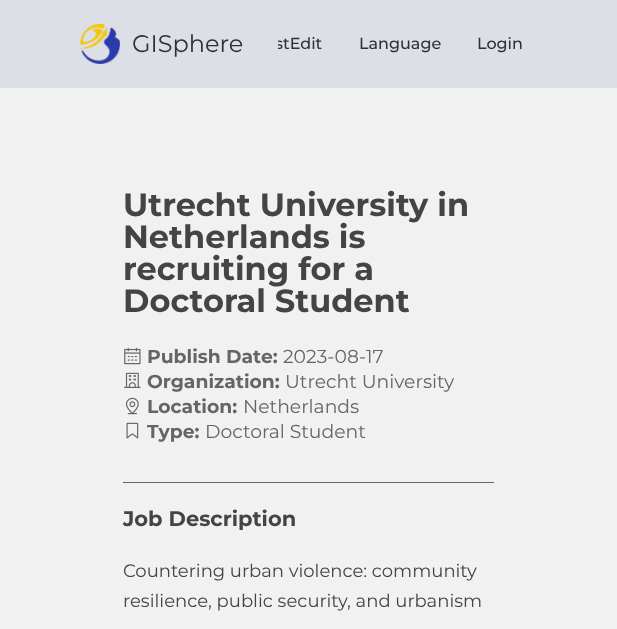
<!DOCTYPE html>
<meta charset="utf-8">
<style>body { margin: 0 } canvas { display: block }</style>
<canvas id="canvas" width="617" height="629"></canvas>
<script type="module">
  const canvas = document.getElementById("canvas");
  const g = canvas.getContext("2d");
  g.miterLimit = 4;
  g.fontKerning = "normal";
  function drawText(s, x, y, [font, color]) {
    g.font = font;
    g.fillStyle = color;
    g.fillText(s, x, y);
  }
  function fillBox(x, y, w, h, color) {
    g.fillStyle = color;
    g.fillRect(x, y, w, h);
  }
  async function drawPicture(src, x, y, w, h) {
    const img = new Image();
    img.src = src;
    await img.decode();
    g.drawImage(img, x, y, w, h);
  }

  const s1 = ["24px Montserrat", "#303133"];
  const s2 = ["500 16px Montserrat", "#303133"];
  const s3 = ["bold 32px Montserrat", "#434446"];
  const s4 = ["bold 18.75px Montserrat", "#636569"];
  const s5 = ["18.75px Montserrat", "#636569"];
  const s6 = ["bold 21px Montserrat", "#434446"];
  const s7 = ["18px Montserrat", "#434446"];

  fillBox(0, 0, 617, 629, "#DCDFE6");
  await drawPicture("pic1.png", 80, 24, 40, 40);
  drawText("GISphere", 132, 52, s1);
  g.save();
  g.beginPath();
  g.rect(278, 24, 259, 40);
  g.clip();
  drawText("stEdit", 275, 49, s2);
  g.restore();
  drawText("Language", 359, 49, s2);
  drawText("Login", 477, 49, s2);
  fillBox(0, 88, 617, 541, "#F1F1F1");
  drawText("Utrecht University in", 123, 216, s3);
  drawText("Netherlands is", 123, 248, s3);
  drawText("recruiting for a", 123, 280, s3);
  drawText("Doctoral Student", 123, 312, s3);
  await drawPicture("pic2.png", 124, 347, 17, 18);
  drawText("Publish Date:", 147, 363, s4);
  drawText("2023-08-17", 283, 363, s5);
  await drawPicture("pic3.png", 124, 372, 17, 16);
  drawText("Organization:", 147, 388, s4);
  drawText("Utrecht University", 285, 388, s5);
  await drawPicture("pic4.png", 125, 397, 14, 18);
  drawText("Location:", 147, 413, s4);
  drawText("Netherlands", 243, 413, s5);
  await drawPicture("pic5.png", 126, 422, 13, 17);
  drawText("Type:", 147, 438, s4);
  drawText("Doctoral Student", 205, 438, s5);
  fillBox(123, 482, 371, 1, "#636569");
  drawText("Job Description", 123, 526, s6);
  drawText("Countering urban violence: community", 123, 577, s7);
  drawText("resilience, public security, and urbanism", 123, 607, s7);
</script>
